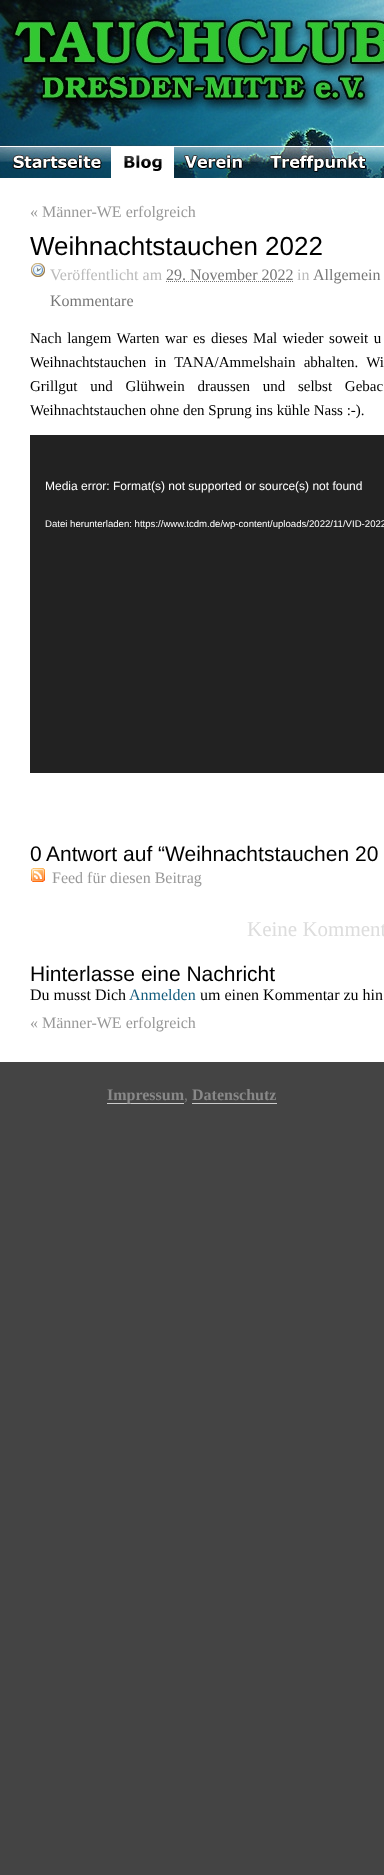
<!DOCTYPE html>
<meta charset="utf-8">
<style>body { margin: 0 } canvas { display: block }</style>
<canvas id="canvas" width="384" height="1875"></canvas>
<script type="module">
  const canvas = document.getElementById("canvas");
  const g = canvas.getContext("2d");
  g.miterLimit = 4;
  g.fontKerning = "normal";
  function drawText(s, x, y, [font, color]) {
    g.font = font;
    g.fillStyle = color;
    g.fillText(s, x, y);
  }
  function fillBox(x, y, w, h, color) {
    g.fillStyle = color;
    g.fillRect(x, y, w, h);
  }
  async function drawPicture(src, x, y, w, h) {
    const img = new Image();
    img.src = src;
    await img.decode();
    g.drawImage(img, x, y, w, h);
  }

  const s1 = ["16px Liberation Serif", "#999999"];
  const s2 = ["26px Liberation Sans", "#000000"];
  const s3 = ["16px Liberation Serif", "#BBBBBB"];
  const s4 = ["16px Liberation Serif", "#777777"];
  const s5 = ["15px Liberation Serif", "#000000"];
  const s6 = ["12px Liberation Sans", "#FFFFFF"];
  const s7 = ["9.6px Liberation Sans", "#FFFFFF"];
  const s8 = ["21px Liberation Sans", "#000000"];
  const s9 = ["21px Liberation Serif", "#DDDDDD"];
  const s10 = ["16px Liberation Serif", "#000000"];
  const s11 = ["16px Liberation Serif", "#135C7D"];
  const s12 = ["bold 16px Liberation Serif", "#888888"];

  fillBox(0, 0, 384, 1875, "#444444");
  fillBox(0, 183, 384, 879, "#FFFFFF");
  await drawPicture("pic1.png", 0, 0, 384, 183);
  await drawPicture("pic2.png", 0, 146, 111, 32);
  await drawPicture("pic3.png", 111, 146, 63, 25);
  await drawPicture("pic4.png", 174, 146, 82, 32);
  await drawPicture("pic5.png", 256, 146, 120, 32);
  await drawPicture("pic6.png", 376, 146, 8, 32);
  drawText("« Männer-WE erfolgreich", 30, 217, s1);
  drawText("Weihnachtstauchen 2022", 30, 255, s2);
  await drawPicture("pic7.png", 31, 263, 14, 14);
  drawText("Veröffentlicht am", 50, 280, s3);
  drawText("29. November 2022", 166, 280, s4);
  g.beginPath();
  g.moveTo(166, 281.5);
  g.lineTo(293.5, 281.5);
  g.strokeStyle = "#777777";
  g.setLineDash([1, 1]);
  g.stroke();
  drawText("in", 297, 280, s3);
  drawText("Allgemein", 313, 280, s4);
  drawText("Kommentare", 50, 306, s4);
  g.wordSpacing = "1.75px";
  drawText("Nach langem Warten war es dieses Mal wieder soweit u", 30, 343, s5);
  g.wordSpacing = "4.5px";
  drawText("Weihnachtstauchen in TANA/Ammelshain abhalten. Wi", 30, 367, s5);
  g.wordSpacing = "9px";
  drawText("Grillgut und Glühwein draussen und selbst Gebac", 30, 391, s5);
  g.wordSpacing = "0px";
  drawText("Weihnachtstauchen ohne den Sprung ins kühle Nass :-).", 30, 415, s5);
  fillBox(30, 435, 354, 338, "#222222");
  drawText("Media error: Format(s) not supported or source(s) not found", 45, 490, s6);
  drawText("Datei herunterladen: https://www.tcdm.de/wp-content/uploads/2022/11/VID-2022", 45, 527, s7);
  drawText("0", 30, 861, s8);
  drawText("Antwort auf “Weihnachtstauchen 20", 46, 861, s8);
  await drawPicture("pic8.png", 31, 868, 14, 14);
  drawText("Feed für diesen Beitrag", 52, 883, s1);
  drawText("Keine Komment", 247, 936, s9);
  drawText("Hinterlasse eine Nachricht", 30, 981, s8);
  drawText("Du musst Dich", 30, 1000, s10);
  drawText("Anmelden", 129, 1000, s11);
  drawText("um einen Kommentar zu hin", 200, 1000, s10);
  drawText("« Männer-WE erfolgreich", 30, 1028, s1);
  fillBox(107, 1103, 77, 1, "#CCCCCC");
  drawText("Impressum", 107, 1100, s12);
  drawText(",", 184, 1100, s4);
  drawText("Datenschutz", 192, 1100, s12);
  fillBox(192, 1103, 85, 1, "#CCCCCC");
</script>
